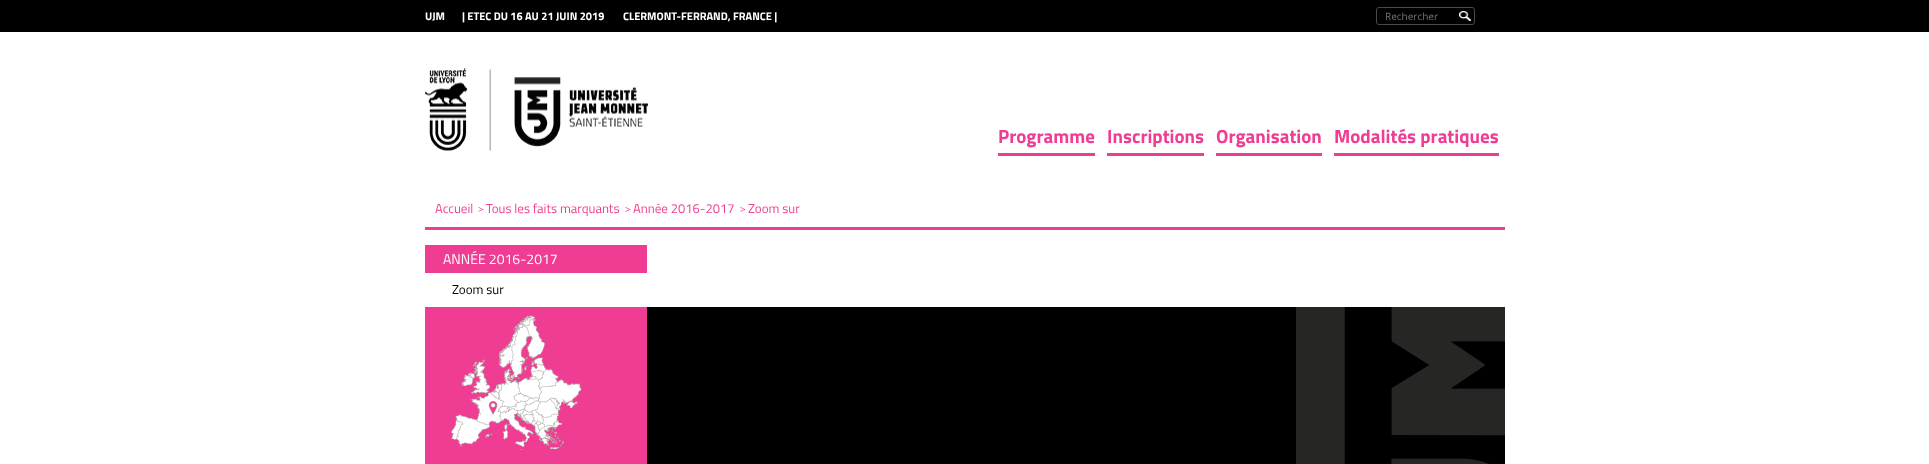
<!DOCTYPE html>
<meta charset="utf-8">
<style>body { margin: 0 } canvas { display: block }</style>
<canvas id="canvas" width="1929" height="464"></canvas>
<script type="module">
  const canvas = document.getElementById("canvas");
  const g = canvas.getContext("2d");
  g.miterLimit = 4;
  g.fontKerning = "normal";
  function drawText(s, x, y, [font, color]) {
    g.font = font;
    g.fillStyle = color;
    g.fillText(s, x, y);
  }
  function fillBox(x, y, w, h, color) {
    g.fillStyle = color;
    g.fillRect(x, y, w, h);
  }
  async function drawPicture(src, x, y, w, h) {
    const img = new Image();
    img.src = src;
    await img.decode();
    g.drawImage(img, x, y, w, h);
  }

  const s1 = ["bold 11px Titillium Web", "#FFFFFF"];
  const s2 = ["10px Open Sans", "#757575"];
  const s3 = ["bold 19px Titillium Web", "#EF3D93"];
  const s4 = ["13px Titillium Web", "#EF3D93"];
  const s5 = ["10px Open Sans", "#EF3D93"];
  const s6 = ["14px Titillium Web", "#FFFFFF"];
  const s7 = ["13px Titillium Web", "#000000"];

  fillBox(0, 0, 1929, 464, "#FFFFFF");
  fillBox(0, 0, 1929, 32, "#000000");
  drawText("UJM", 425, 20, s1);
  drawText("| ETEC DU 16 AU 21 JUIN 2019", 462, 20, s1);
  drawText("CLERMONT-FERRAND, FRANCE |", 623, 20, s1);
  g.beginPath();
  g.roundRect(1376.5, 7.5, 98, 17, 2.5);
  g.strokeStyle = "#494949";
  g.stroke();
  drawText("Rechercher", 1385, 20, s2);
  await drawPicture("pic1.png", 1459, 11, 12, 10);
  await drawPicture("pic2.png", 425, 68, 223, 83);
  drawText("Programme", 998, 143, s3);
  fillBox(998, 153, 97, 3, "#EF3D93");
  drawText("Inscriptions", 1107, 143, s3);
  fillBox(1107, 153, 97, 3, "#EF3D93");
  drawText("Organisation", 1216, 143, s3);
  fillBox(1216, 153, 106, 3, "#EF3D93");
  drawText("Modalités pratiques", 1334, 143, s3);
  fillBox(1334, 153, 165, 3, "#EF3D93");
  fillBox(425, 227, 1080, 3, "#EF3D93");
  drawText("Accueil", 435, 213, s4);
  drawText(">", 478, 213, s5);
  drawText("Tous les faits marquants", 486, 213, s4);
  drawText(">", 625, 213, s5);
  drawText("Année 2016-2017", 633, 213, s4);
  drawText(">", 740, 213, s5);
  drawText("Zoom sur", 748, 213, s4);
  fillBox(425, 245, 222, 28, "#EF3D93");
  drawText("ANNÉE 2016-2017", 443, 264, s6);
  drawText("Zoom sur", 452, 294, s7);
  fillBox(647, 307, 858, 157, "#000000");
  fillBox(425, 307, 222, 157, "#EF3D93");
  await drawPicture("pic3.png", 451, 315, 130, 135);
  await drawPicture("pic4.png", 1296, 307, 209, 157);
</script>
